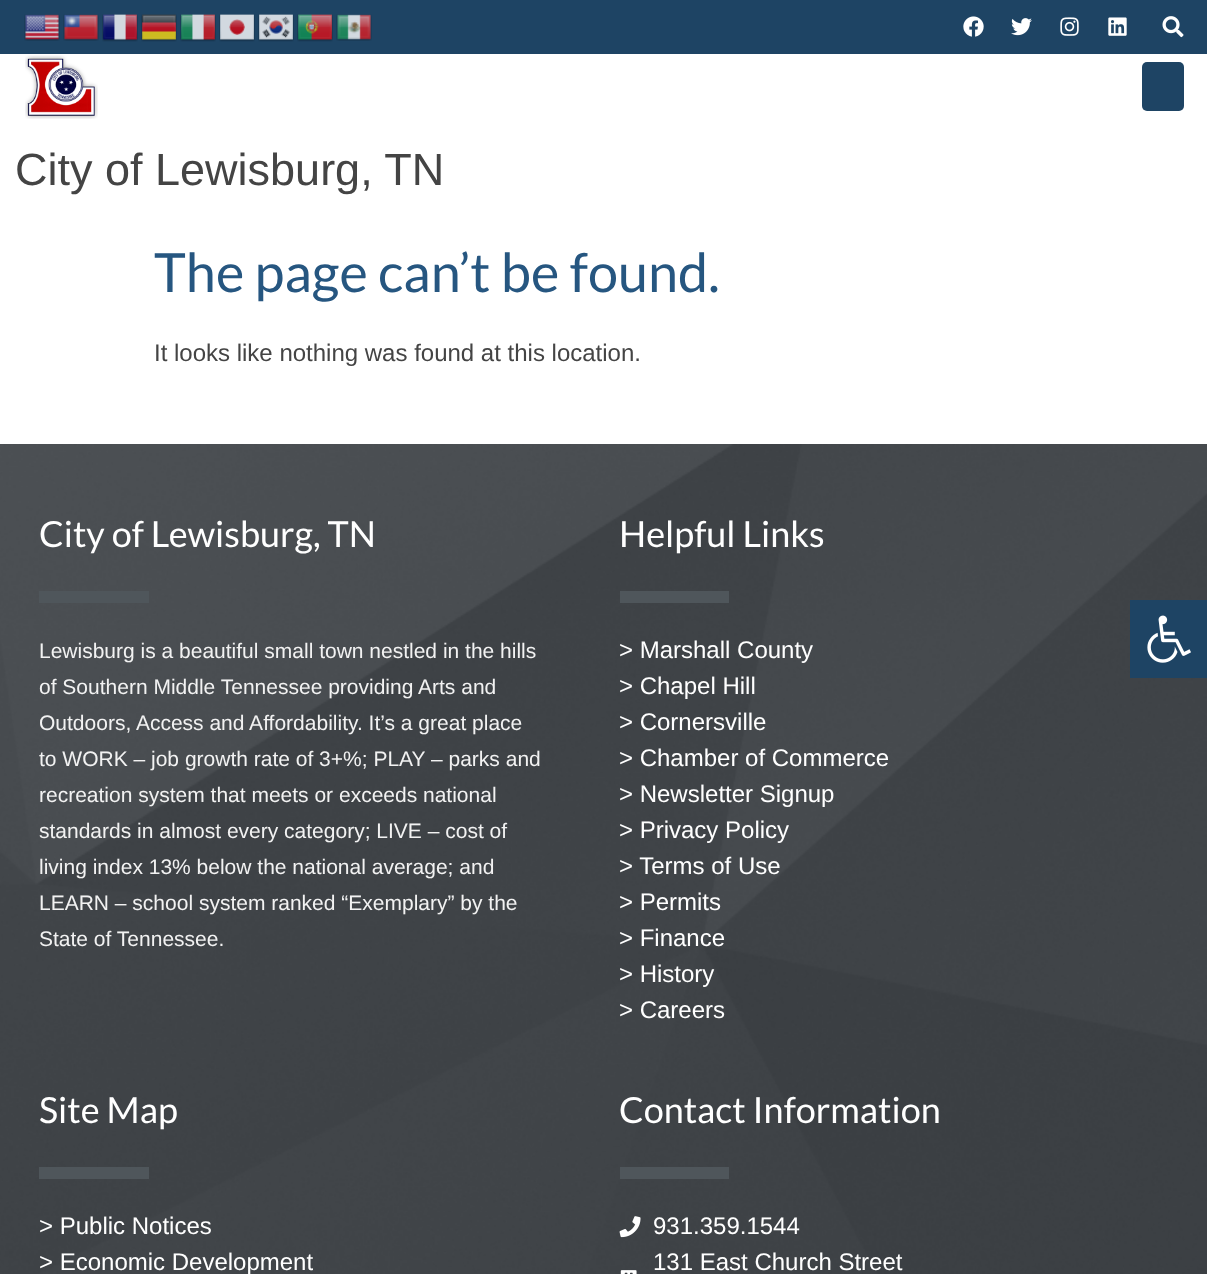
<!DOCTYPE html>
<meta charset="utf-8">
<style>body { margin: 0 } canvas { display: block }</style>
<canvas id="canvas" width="1207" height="1274"></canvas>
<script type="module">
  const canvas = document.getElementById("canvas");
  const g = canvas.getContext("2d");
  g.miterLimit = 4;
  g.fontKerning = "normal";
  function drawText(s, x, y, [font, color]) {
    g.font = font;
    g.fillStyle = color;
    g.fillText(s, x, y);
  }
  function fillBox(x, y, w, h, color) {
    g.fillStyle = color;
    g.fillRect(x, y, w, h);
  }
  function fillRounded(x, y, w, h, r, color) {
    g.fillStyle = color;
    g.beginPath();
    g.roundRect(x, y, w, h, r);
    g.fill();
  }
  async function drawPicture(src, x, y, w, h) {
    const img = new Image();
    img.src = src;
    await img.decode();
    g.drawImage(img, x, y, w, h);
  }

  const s1 = ["45px Liberation Sans", "#444444"];
  const s2 = ["54px Lato", "#265680"];
  const s3 = ["24px Liberation Sans", "#444444"];
  const s4 = ["36px Lato", "#FFFFFF"];
  const s5 = ["21px Liberation Sans", "#F2F2F2"];
  const s6 = ["24px Liberation Sans", "#FFFFFF"];

  fillBox(0, 0, 1207, 1274, "#FFFFFF");
  fillBox(0, 0, 1207, 54, "#1E4464");
  await drawPicture("pic1.png", 24, 14, 36, 27);
  await drawPicture("pic2.png", 63, 14, 36, 27);
  await drawPicture("pic3.png", 102, 14, 36, 28);
  await drawPicture("pic4.png", 141, 14, 36, 28);
  await drawPicture("pic5.png", 180, 14, 36, 28);
  await drawPicture("pic6.png", 219, 14, 36, 28);
  await drawPicture("pic7.png", 258, 14, 36, 28);
  await drawPicture("pic8.png", 297, 14, 36, 28);
  await drawPicture("pic9.png", 336, 14, 36, 27);
  await drawPicture("pic10.png", 963, 16, 21, 21);
  await drawPicture("pic11.png", 1011, 18, 21, 18);
  await drawPicture("pic12.png", 1060, 17, 19, 19);
  await drawPicture("pic13.png", 1108, 17, 19, 19);
  await drawPicture("pic14.png", 1162, 16, 22, 22);
  await drawPicture("pic15.png", 25, 55, 73, 64);
  fillRounded(1142, 62, 42, 49, 5, "#1E4464");
  drawText("City of Lewisburg, TN", 15, 185, s1);
  drawText("The page can’t be found.", 154, 292, s2);
  drawText("It looks like nothing was found at this location.", 154, 361, s3);
  fillBox(0, 444, 1207, 830, "#373C40");
  await drawPicture("pic16.png", 0, 444, 1207, 830);
  drawText("City of Lewisburg, TN", 39, 547, s4);
  fillBox(39, 591, 110, 12, "#4F565B");
  drawText("Lewisburg is a beautiful small town nestled in the hills", 39, 658, s5);
  drawText("of Southern Middle Tennessee providing Arts and", 39, 694, s5);
  drawText("Outdoors, Access and Affordability. It’s a great place", 39, 730, s5);
  drawText("to WORK – job growth rate of 3+%; PLAY – parks and", 39, 766, s5);
  drawText("recreation system that meets or exceeds national", 39, 802, s5);
  drawText("standards in almost every category; LIVE – cost of", 39, 838, s5);
  drawText("living index 13% below the national average; and", 39, 874, s5);
  drawText("LEARN – school system ranked “Exemplary” by the", 39, 910, s5);
  drawText("State of Tennessee.", 39, 946, s5);
  drawText("Helpful Links", 619, 547, s4);
  fillBox(620, 591, 109, 12, "#4F565B");
  drawText("> Marshall County", 619, 658, s6);
  drawText("> Chapel Hill", 619, 694, s6);
  drawText("> Cornersville", 619, 730, s6);
  drawText("> Chamber of Commerce", 619, 766, s6);
  drawText("> Newsletter Signup", 619, 802, s6);
  drawText("> Privacy Policy", 619, 838, s6);
  drawText("> Terms of Use", 619, 874, s6);
  drawText("> Permits", 619, 910, s6);
  drawText("> Finance", 619, 946, s6);
  drawText("> History", 619, 982, s6);
  drawText("> Careers", 619, 1018, s6);
  drawText("Site Map", 39, 1123, s4);
  fillBox(39, 1167, 110, 12, "#4F565B");
  drawText("> Public Notices", 39, 1234, s6);
  drawText("> Economic Development", 39, 1270, s6);
  drawText("Contact Information", 619, 1123, s4);
  fillBox(620, 1167, 109, 12, "#4F565B");
  await drawPicture("pic17.png", 619, 1216, 22, 22);
  drawText("931.359.1544", 653, 1234, s6);
  drawText("131 East Church Street", 653, 1270, s6);
  await drawPicture("pic18.png", 620, 1270, 17, 4);
  fillBox(1130, 600, 77, 78, "#1E4464");
  await drawPicture("pic19.png", 1147, 615, 44, 48);
</script>
